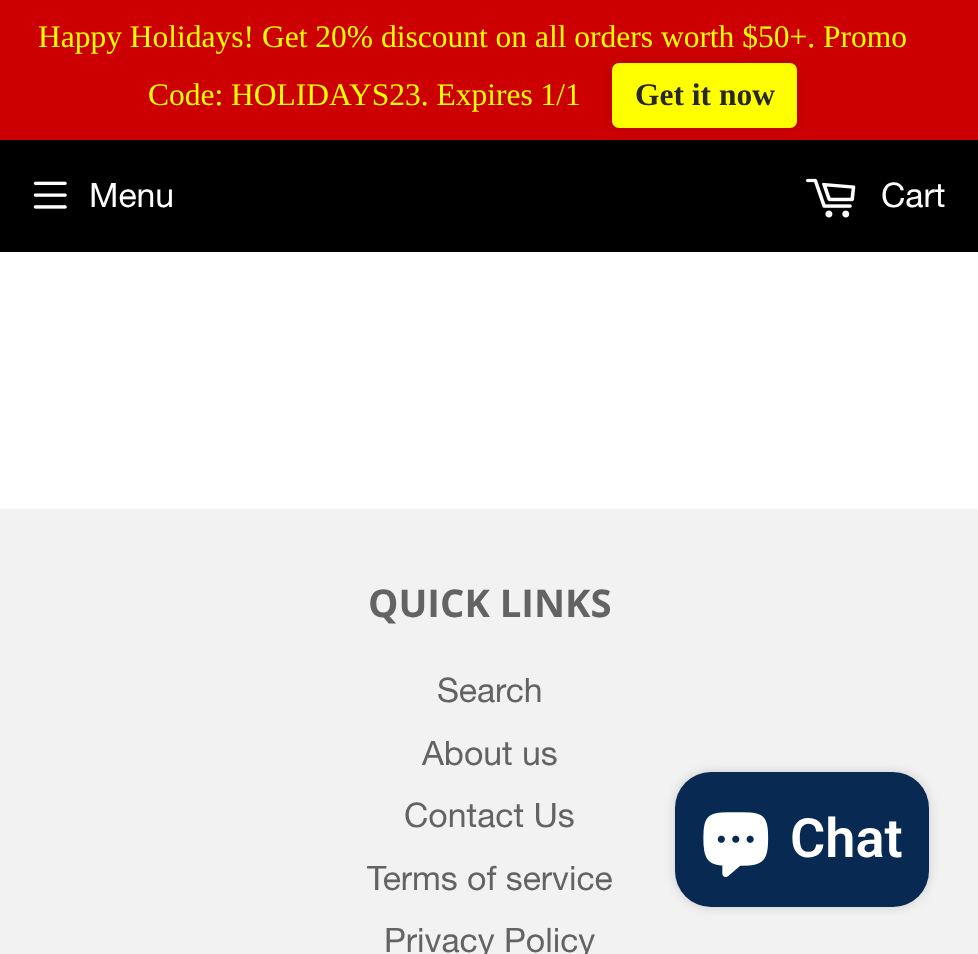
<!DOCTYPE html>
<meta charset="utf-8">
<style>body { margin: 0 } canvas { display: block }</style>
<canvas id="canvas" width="978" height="954"></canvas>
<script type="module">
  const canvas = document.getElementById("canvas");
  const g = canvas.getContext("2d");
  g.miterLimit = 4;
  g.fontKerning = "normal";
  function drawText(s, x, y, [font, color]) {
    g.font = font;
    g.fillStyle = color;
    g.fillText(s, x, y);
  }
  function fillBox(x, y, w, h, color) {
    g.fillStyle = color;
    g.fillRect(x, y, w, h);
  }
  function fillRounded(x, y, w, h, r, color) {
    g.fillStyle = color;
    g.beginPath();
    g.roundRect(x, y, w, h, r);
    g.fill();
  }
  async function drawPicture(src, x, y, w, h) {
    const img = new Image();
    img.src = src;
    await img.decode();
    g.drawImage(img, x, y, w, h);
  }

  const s1 = ["31.5px Liberation Serif", "#FFFF00"];
  const s2 = ["bold 31.5px Liberation Serif", "#272727"];
  const s3 = ["33.75px Helvetica Neue", "#FFFFFF"];
  const s4 = ["bold 38.25px Open Sans", "#636363"];
  const s5 = ["33.75px Helvetica Neue", "#636363"];
  const s6 = ["600 54px Roboto", "#FFFFFF"];

  fillBox(0, 0, 978, 954, "#FFFFFF");
  fillBox(0, 0, 978, 140, "#CC0000");
  drawText("Happy Holidays! Get 20% discount on all orders worth $50+. Promo", 38, 47, s1);
  drawText("Code: HOLIDAYS23. Expires 1/1", 148, 105, s1);
  g.fillStyle = "rgba(0, 0, 0, 0.1)";
  g.filter = "blur(5.5px)";
  g.beginPath();
  g.roundRect(612, 63, 185, 65, 7);
  g.fill();
  g.filter = "none";
  fillRounded(612, 63, 185, 65, 7, "#FFFF00");
  drawText("Get it now", 635, 105, s2);
  fillBox(0, 140, 978, 112, "#000000");
  await drawPicture("pic1.png", 33, 181, 34, 28);
  drawText("Menu", 89, 207, s3);
  await drawPicture("pic2.png", 806, 178, 50, 40);
  drawText("Cart", 881, 207, s3);
  fillBox(0, 509, 978, 445, "#F2F2F2");
  drawText("QUICK LINKS", 368, 617, s4);
  drawText("Search", 437, 702, s5);
  drawText("About us", 422, 765, s5);
  drawText("Contact Us", 404, 827, s5);
  drawText("Terms of service", 367, 890, s5);
  drawText("Privacy Policy", 384, 952, s5);
  g.fillStyle = "rgba(0, 0, 0, 0.15)";
  g.filter = "blur(5.5px)";
  g.beginPath();
  g.roundRect(675, 772, 254, 135, 36);
  g.fill();
  g.filter = "none";
  fillRounded(675, 772, 254, 135, 36, "#082951");
  await drawPicture("pic3.png", 703, 812, 66, 65);
  drawText("Chat", 790, 857, s6);
</script>
